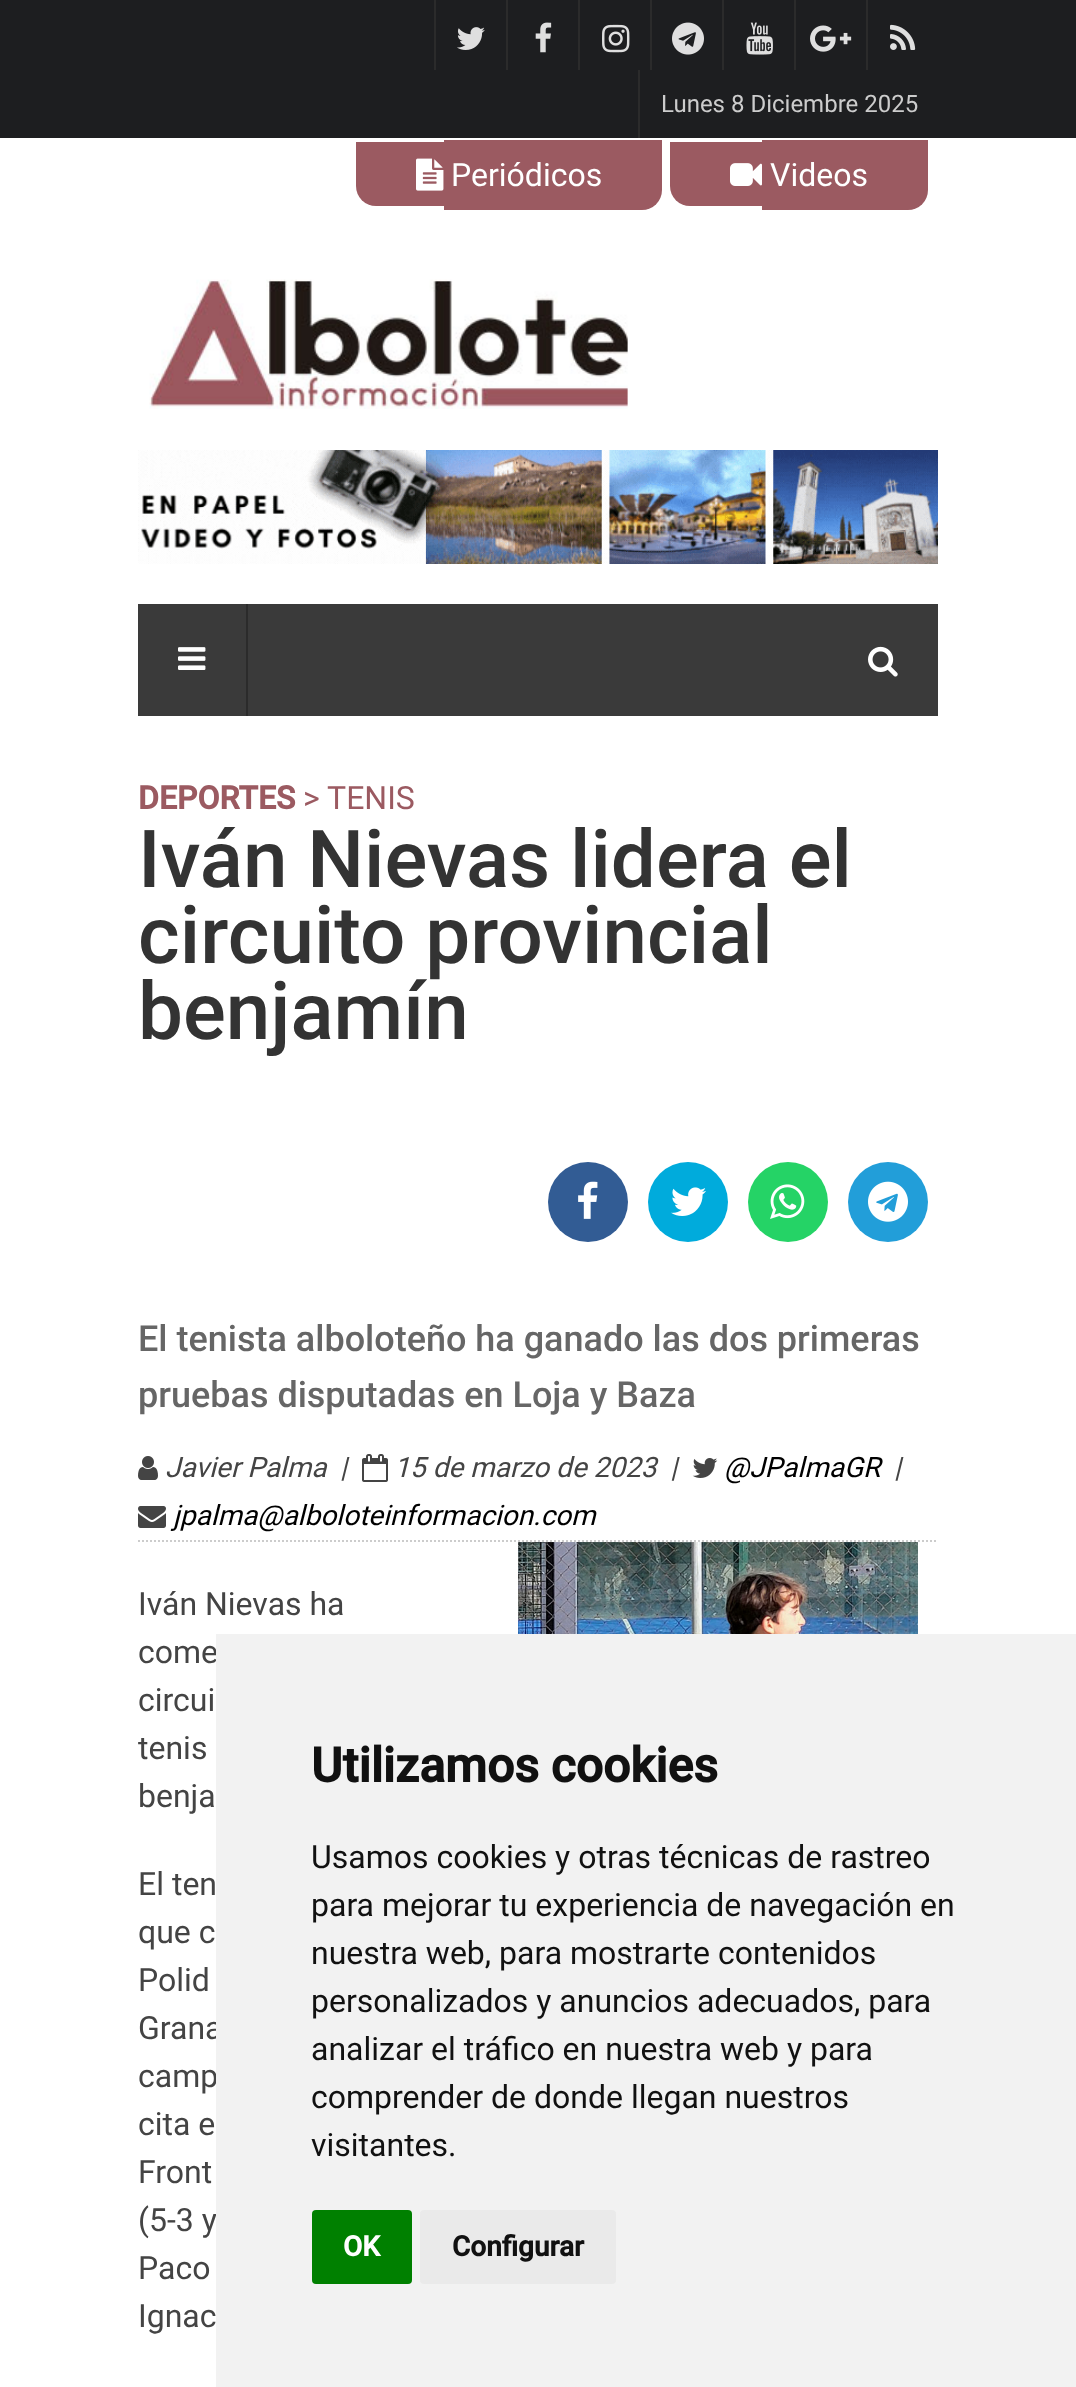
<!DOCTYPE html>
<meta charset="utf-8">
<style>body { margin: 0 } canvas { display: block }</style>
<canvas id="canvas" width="1076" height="2387"></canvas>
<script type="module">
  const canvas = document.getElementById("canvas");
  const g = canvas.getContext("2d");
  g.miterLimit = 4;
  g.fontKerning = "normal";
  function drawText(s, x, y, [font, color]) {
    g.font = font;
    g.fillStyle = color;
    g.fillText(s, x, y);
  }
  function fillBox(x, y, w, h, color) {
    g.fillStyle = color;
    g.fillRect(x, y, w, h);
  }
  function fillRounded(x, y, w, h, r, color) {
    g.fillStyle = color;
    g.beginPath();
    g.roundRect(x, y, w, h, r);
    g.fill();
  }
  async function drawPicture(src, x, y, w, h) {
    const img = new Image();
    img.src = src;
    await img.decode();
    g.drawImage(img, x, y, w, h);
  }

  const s1 = ["24px Roboto", "#CCCCCC"];
  const s2 = ["32px Roboto", "#FFFFFF"];
  const s3 = ["bold 32px Roboto", "#9B5A61"];
  const s4 = ["32px Roboto", "#9B5A61"];
  const s5 = ["500 80px Roboto", "#333333"];
  const s6 = ["500 36px Roboto", "#666666"];
  const s7 = ["italic 28px Roboto", "#444444"];
  const s8 = ["italic 28px Roboto", "#000000"];
  const s9 = ["32px Roboto", "#444444"];
  const s10 = ["bold 48px Roboto", "#111111"];
  const s11 = ["32px Roboto", "#111111"];
  const s12 = ["bold 28px Roboto", "#FFFFFF"];
  const s13 = ["bold 28px Roboto", "#111111"];

  fillBox(0, 0, 1076, 2387, "#FFFFFF");
  fillBox(0, 0, 1076, 138, "#1D1E20");
  fillBox(434, 0, 2, 70, "#2B2B2B");
  await drawPicture("pic1.png", 457, 27, 28, 23);
  fillBox(506, 0, 2, 70, "#2B2B2B");
  await drawPicture("pic2.png", 535, 22, 17, 31);
  fillBox(578, 0, 2, 70, "#2B2B2B");
  await drawPicture("pic3.png", 602, 24, 28, 29);
  fillBox(650, 0, 2, 70, "#2B2B2B");
  await drawPicture("pic4.png", 672, 22, 32, 33);
  fillBox(722, 0, 2, 70, "#2B2B2B");
  await drawPicture("pic5.png", 746, 22, 27, 33);
  fillBox(794, 0, 2, 70, "#2B2B2B");
  await drawPicture("pic6.png", 810, 25, 42, 27);
  fillBox(866, 0, 2, 70, "#2B2B2B");
  await drawPicture("pic7.png", 890, 24, 26, 26);
  fillBox(638, 70, 2, 68, "#2B2B2B");
  drawText("Lunes 8 Diciembre 2025", 661, 112, s1);
  g.fillStyle = "#9B5A61";
  g.beginPath();
  g.roundRect(356, 142, 88, 64, [0, 0, 0, 20]);
  g.fill();
  g.beginPath();
  g.roundRect(444, 140, 218, 70, [0, 0, 20, 0]);
  g.fill();
  await drawPicture("pic8.png", 416, 158, 28, 33);
  drawText("Periódicos", 451, 186, s2);
  g.fillStyle = "#9B5A61";
  g.beginPath();
  g.roundRect(670, 142, 92, 64, [0, 0, 0, 20]);
  g.fill();
  g.beginPath();
  g.roundRect(762, 140, 166, 70, [0, 0, 20, 0]);
  g.fill();
  await drawPicture("pic9.png", 730, 163, 32, 23);
  drawText("Videos", 770, 186, s2);
  await drawPicture("pic10.png", 149, 279, 479, 130);
  await drawPicture("pic11.png", 138, 450, 800, 114);
  fillBox(138, 604, 800, 112, "#3A3A3A");
  fillBox(246, 604, 2, 112, "#2B2B2B");
  await drawPicture("pic12.png", 178, 647, 28, 23);
  await drawPicture("pic13.png", 868, 646, 30, 31);
  drawText("DEPORTES", 138, 809, s3);
  drawText("> TENIS", 303, 809, s4);
  drawText("Iván Nievas lidera el", 138, 887, s5);
  drawText("circuito provincial", 138, 963, s5);
  drawText("benjamín", 138, 1039, s5);
  g.fillStyle = "#325C94";
  g.beginPath();
  g.arc(588, 1202, 40, 0, Math.PI * 2);
  g.fill();
  await drawPicture("pic14.png", 578, 1181, 20, 38);
  g.fillStyle = "#00ABDC";
  g.beginPath();
  g.arc(688, 1202, 40, 0, Math.PI * 2);
  g.fill();
  await drawPicture("pic15.png", 671, 1187, 35, 29);
  g.fillStyle = "#25D366";
  g.beginPath();
  g.arc(788, 1202, 40, 0, Math.PI * 2);
  g.fill();
  await drawPicture("pic16.png", 770, 1184, 35, 35);
  g.fillStyle = "#229ED9";
  g.beginPath();
  g.arc(888, 1202, 40, 0, Math.PI * 2);
  g.fill();
  await drawPicture("pic17.png", 868, 1181, 40, 41);
  drawText("El tenista alboloteño ha ganado las dos primeras", 138, 1351, s6);
  drawText("pruebas disputadas en Loja y Baza", 138, 1407, s6);
  g.beginPath();
  g.moveTo(138, 1541);
  g.lineTo(938, 1541);
  g.strokeStyle = "#CCCCCC";
  g.lineWidth = 2;
  g.setLineDash([2, 2]);
  g.stroke();
  await drawPicture("pic18.png", 138, 1456, 20, 24);
  drawText("Javier Palma", 165, 1477, s7);
  drawText("|", 340, 1477, s7);
  await drawPicture("pic19.png", 362, 1454, 26, 28);
  drawText("15 de marzo de 2023  |", 394, 1477, s7);
  await drawPicture("pic20.png", 692, 1458, 26, 20);
  drawText("@JPalmaGR", 724, 1477, s8);
  drawText("|", 894, 1477, s7);
  await drawPicture("pic21.png", 138, 1506, 28, 22);
  drawText("jpalma@alboloteinformacion.com", 173, 1525, s8);
  drawText("Iván Nievas ha", 138, 1615, s9);
  drawText("come", 138, 1663, s9);
  drawText("circui", 138, 1711, s9);
  drawText("tenis", 138, 1759, s9);
  drawText("benja", 138, 1807, s9);
  await drawPicture("pic22.png", 518, 1542, 400, 92);
  drawText("El ten", 138, 1895, s9);
  drawText("que c", 138, 1943, s9);
  drawText("Polid", 138, 1991, s9);
  drawText("Grana", 138, 2039, s9);
  drawText("camp", 138, 2087, s9);
  drawText("cita e", 138, 2135, s9);
  drawText("Front", 138, 2183, s9);
  drawText("(5-3 y", 138, 2231, s9);
  drawText("Paco", 138, 2279, s9);
  drawText("Ignac", 138, 2327, s9);
  fillBox(216, 1634, 860, 753, "#F2F2F2");
  drawText("Utilizamos cookies", 311, 1782, s10);
  drawText("Usamos cookies y otras técnicas de rastreo", 311, 1868, s11);
  drawText("para mejorar tu experiencia de navegación en", 311, 1916, s11);
  drawText("nuestra web, para mostrarte contenidos", 311, 1964, s11);
  drawText("personalizados y anuncios adecuados, para", 311, 2012, s11);
  drawText("analizar el tráfico en nuestra web y para", 311, 2060, s11);
  drawText("comprender de donde llegan nuestros", 311, 2108, s11);
  drawText("visitantes.", 311, 2156, s11);
  fillRounded(312, 2210, 100, 74, 4, "#008000");
  drawText("OK", 343, 2256, s12);
  fillRounded(420, 2210, 196, 74, 4, "#EAEAEA");
  drawText("Configurar", 452, 2256, s13);
</script>
